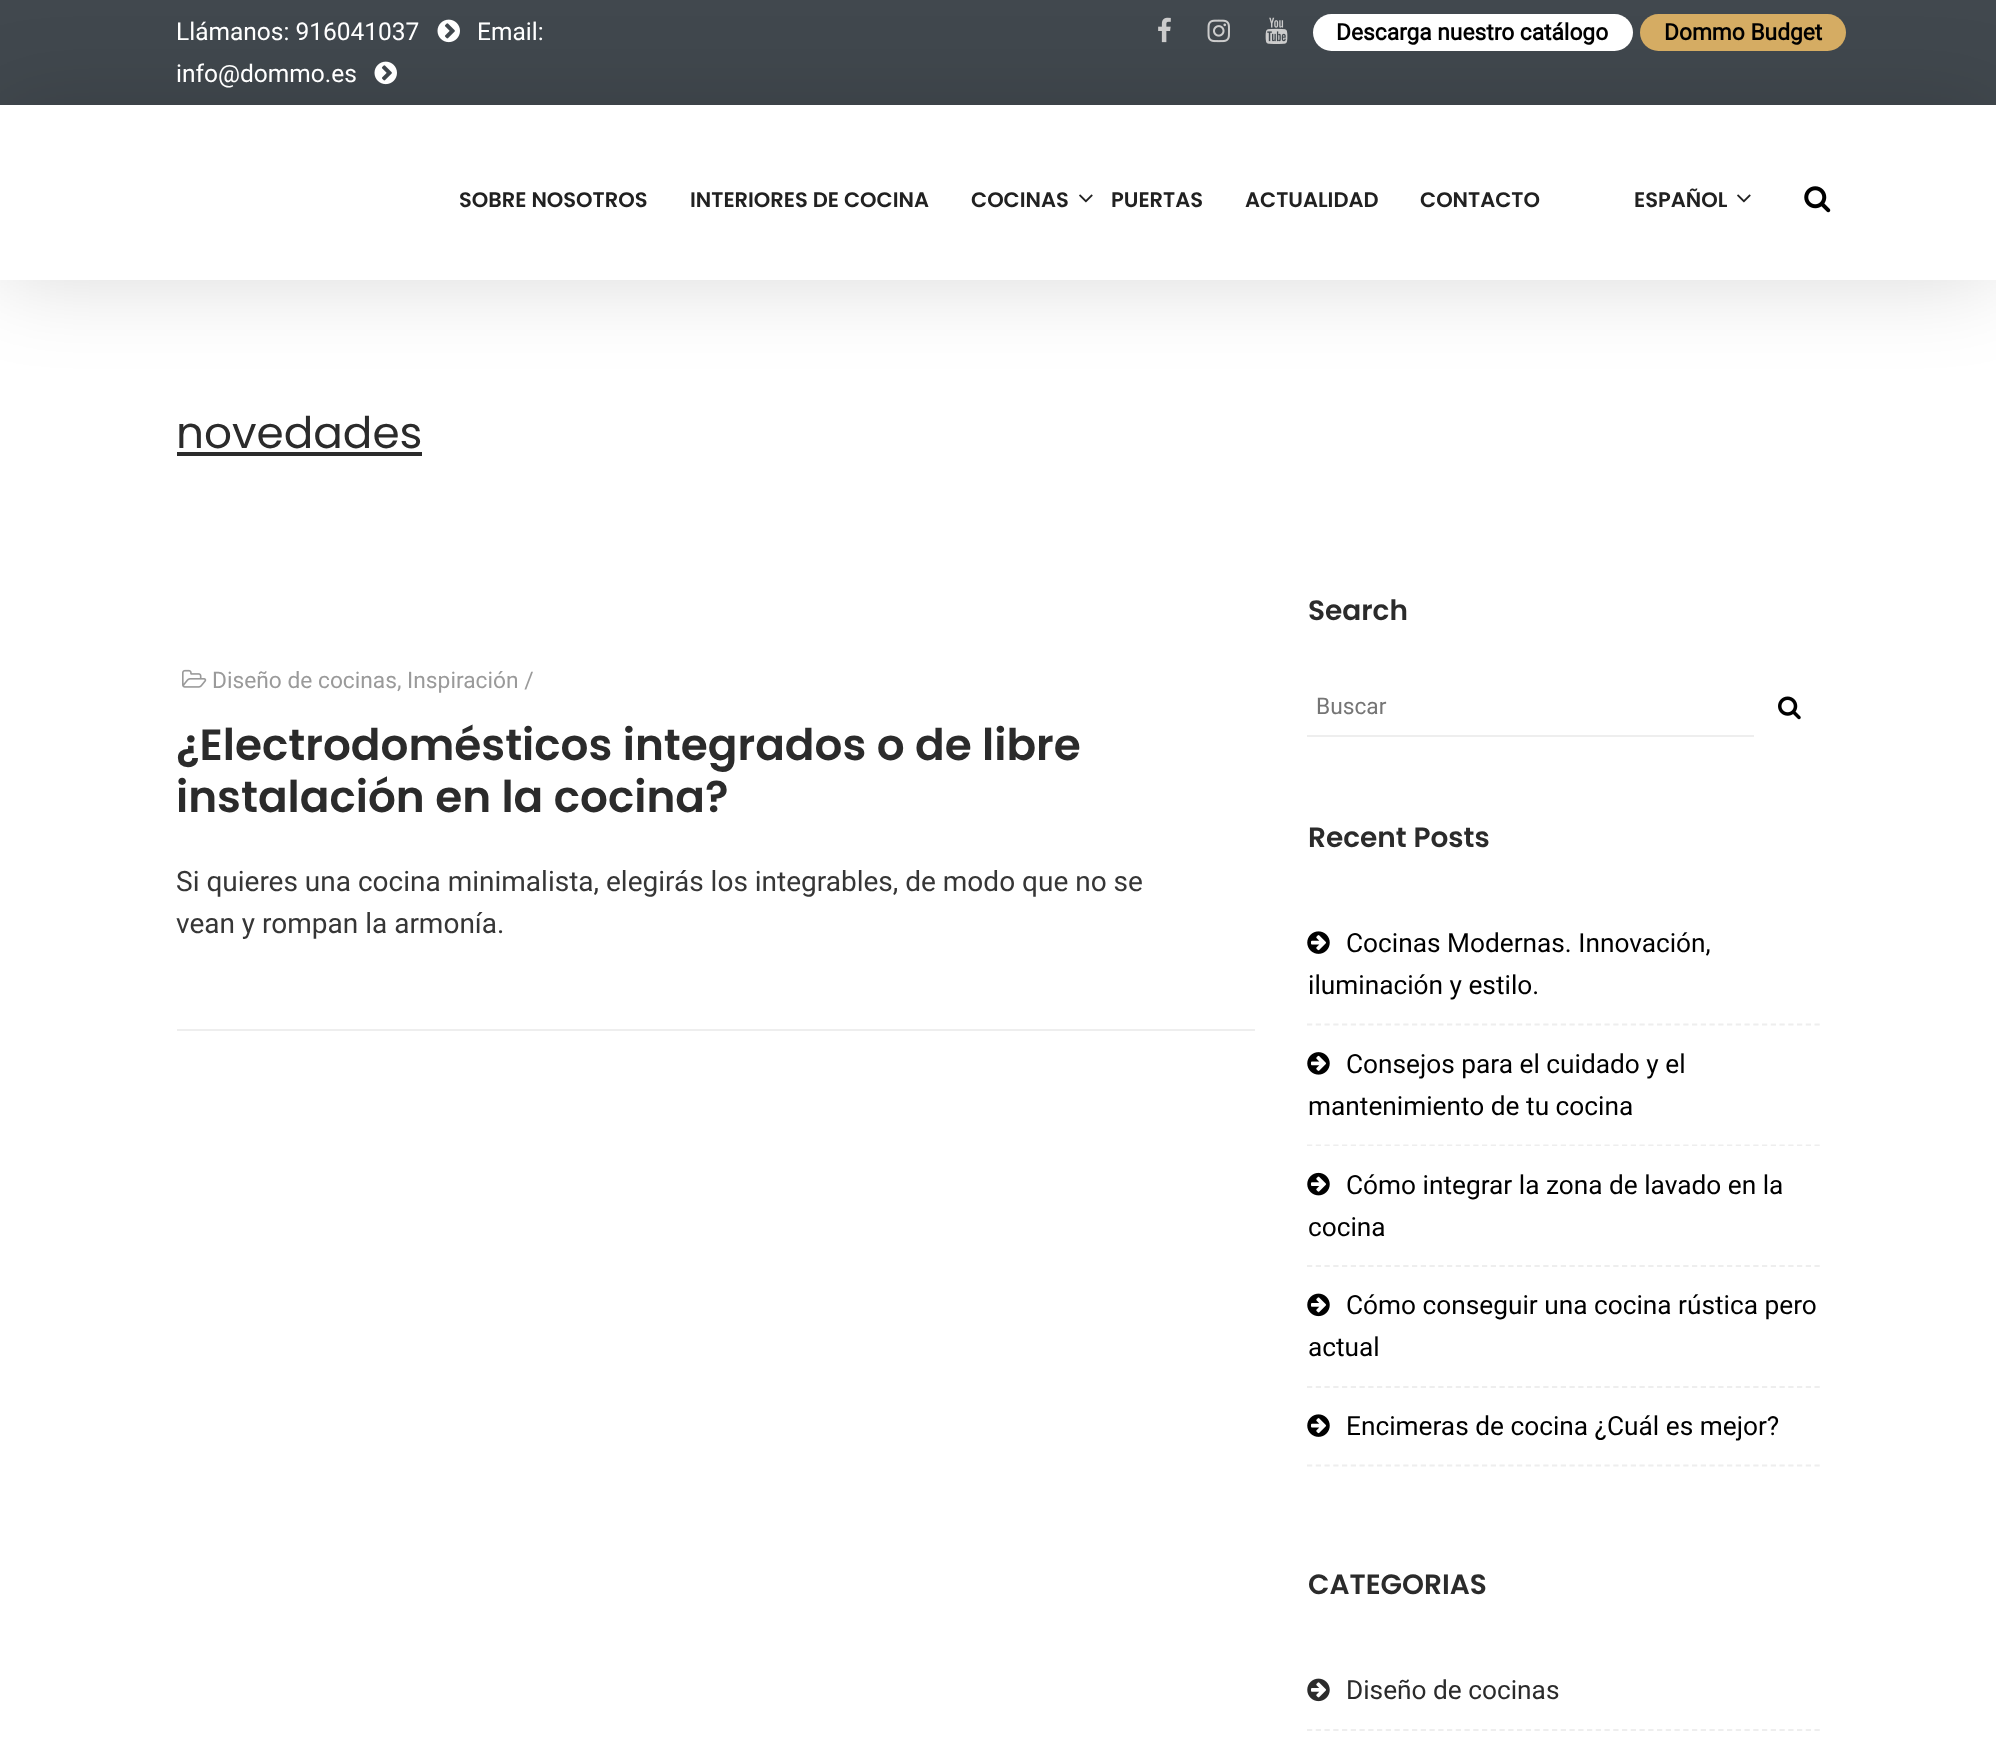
<!DOCTYPE html>
<meta charset="utf-8">
<style>body { margin: 0 } canvas { display: block }</style>
<canvas id="canvas" width="1996" height="1752"></canvas>
<script type="module">
  const canvas = document.getElementById("canvas");
  const g = canvas.getContext("2d");
  g.miterLimit = 4;
  g.fontKerning = "normal";
  function drawText(s, x, y, [font, color]) {
    g.font = font;
    g.fillStyle = color;
    g.fillText(s, x, y);
  }
  function fillBox(x, y, w, h, color) {
    g.fillStyle = color;
    g.fillRect(x, y, w, h);
  }
  function fillRounded(x, y, w, h, r, color) {
    g.fillStyle = color;
    g.beginPath();
    g.roundRect(x, y, w, h, r);
    g.fill();
  }
  async function drawPicture(src, x, y, w, h) {
    const img = new Image();
    img.src = src;
    await img.decode();
    g.drawImage(img, x, y, w, h);
  }

  const s1 = ["24.5px Roboto", "#FFFFFF"];
  const s2 = ["bold 22.75px Roboto", "#000000"];
  const s3 = ["600 21px Poppins", "#212121"];
  const s4 = ["43.75px Poppins", "#2B2B2B"];
  const s5 = ["22.75px Roboto", "#9A9A9A"];
  const s6 = ["600 43.75px Poppins", "#2B2B2B"];
  const s7 = ["28px Roboto", "#363636"];
  const s8 = ["600 28px Poppins", "#2B2B2B"];
  const s9 = ["22.75px Roboto", "#757575"];
  const s10 = ["26.25px Roboto", "#000000"];
  const s11 = ["26.25px Roboto", "#2B2B2B"];

  fillBox(0, 0, 1996, 1752, "#FFFFFF");
  fillBox(0, 0, 1996, 105, "#41484E");
  g.save();
  g.beginPath();
  g.moveTo(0, 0);
  g.lineTo(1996, 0);
  g.lineTo(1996, 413);
  g.lineTo(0, 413);
  g.closePath();
  g.moveTo(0, 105);
  g.lineTo(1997, 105);
  g.lineTo(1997, 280);
  g.lineTo(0, 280);
  g.closePath();
  g.clip("evenodd");
  g.fillStyle = "rgba(0, 0, 0, 0.15)";
  g.filter = "blur(44px)";
  g.beginPath();
  g.rect(0, 105, 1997, 175);
  g.fill();
  g.filter = "none";
  g.restore();
  drawText("Llámanos: 916041037", 176, 40, s1);
  await drawPicture("pic1.png", 437, 19, 23, 24);
  drawText("Email:", 477, 40, s1);
  drawText("info@dommo.es", 176, 82, s1);
  await drawPicture("pic2.png", 374, 61, 23, 24);
  await drawPicture("pic3.png", 1158, 17, 13, 26);
  await drawPicture("pic4.png", 1207, 19, 23, 24);
  await drawPicture("pic5.png", 1265, 17, 23, 27);
  fillRounded(1313, 14, 320, 37, 18.5, "#FFFFFF");
  drawText("Descarga nuestro catálogo", 1336, 40, s2);
  fillRounded(1640, 14, 206, 37, 18.5, "#D5AC63");
  drawText("Dommo Budget", 1664, 40, s2);
  drawText("SOBRE NOSOTROS", 459, 207, s3);
  drawText("INTERIORES DE COCINA", 690, 207, s3);
  drawText("COCINAS", 971, 207, s3);
  await drawPicture("pic6.png", 1079, 194, 14, 9);
  drawText("PUERTAS", 1111, 207, s3);
  drawText("ACTUALIDAD", 1245, 207, s3);
  drawText("CONTACTO", 1420, 207, s3);
  drawText("ESPAÑOL", 1634, 207, s3);
  await drawPicture("pic6.png", 1737, 194, 14, 9);
  await drawPicture("pic7.png", 1804, 186, 27, 27);
  drawText("novedades", 176, 448, s4);
  fillBox(177, 452, 245, 4, "#2B2B2B");
  fillBox(177, 1029, 1078, 2, "#EEEEEE");
  await drawPicture("pic8.png", 182, 669, 25, 19);
  drawText("Diseño de cocinas, Inspiración /", 212, 688, s5);
  drawText("¿Electrodomésticos integrados o de libre", 176, 760, s6);
  drawText("instalación en la cocina?", 176, 812, s6);
  drawText("Si quieres una cocina minimalista, elegirás los integrables, de modo que no se", 176, 891, s7);
  drawText("vean y rompan la armonía.", 176, 933, s7);
  drawText("Search", 1308, 620, s8);
  fillBox(1307, 735, 447, 2, "#EEEEEE");
  drawText("Buscar", 1316, 714, s9);
  await drawPicture("pic9.png", 1778, 696, 23, 24);
  drawText("Recent Posts", 1308, 847, s8);
  g.beginPath();
  g.moveTo(1307, 1024.5);
  g.lineTo(1820, 1024.5);
  g.strokeStyle = "#EEEEEE";
  g.lineWidth = 1.8;
  g.setLineDash([5.25, 3.5]);
  g.stroke();
  await drawPicture("pic10.png", 1307, 931, 23, 23);
  drawText("Cocinas Modernas. Innovación,", 1346, 952, s10);
  drawText("iluminación y estilo.", 1308, 994, s10);
  g.beginPath();
  g.moveTo(1307, 1145.5);
  g.lineTo(1820, 1145.5);
  g.stroke();
  await drawPicture("pic11.png", 1307, 1052, 23, 23);
  drawText("Consejos para el cuidado y el", 1346, 1073, s10);
  drawText("mantenimiento de tu cocina", 1308, 1115, s10);
  fillBox(1307, 1146, 513, 1, "#FFFFFF");
  g.beginPath();
  g.moveTo(1307, 1266);
  g.lineTo(1820, 1266);
  g.stroke();
  await drawPicture("pic12.png", 1307, 1172, 23, 24);
  drawText("Cómo integrar la zona de lavado en la", 1346, 1194, s10);
  drawText("cocina", 1308, 1236, s10);
  g.beginPath();
  g.moveTo(1307, 1387);
  g.lineTo(1820, 1387);
  g.stroke();
  await drawPicture("pic13.png", 1307, 1293, 23, 24);
  drawText("Cómo conseguir una cocina rústica pero", 1346, 1314, s10);
  drawText("actual", 1308, 1356, s10);
  g.beginPath();
  g.moveTo(1307, 1465.5);
  g.lineTo(1820, 1465.5);
  g.stroke();
  await drawPicture("pic10.png", 1307, 1414, 23, 23);
  drawText("Encimeras de cocina ¿Cuál es mejor?", 1346, 1435, s10);
  drawText("CATEGORIAS", 1308, 1594, s8);
  g.beginPath();
  g.moveTo(1307, 1730);
  g.lineTo(1820, 1730);
  g.stroke();
  await drawPicture("pic14.png", 1307, 1678, 23, 24);
  drawText("Diseño de cocinas", 1346, 1699, s11);
</script>
